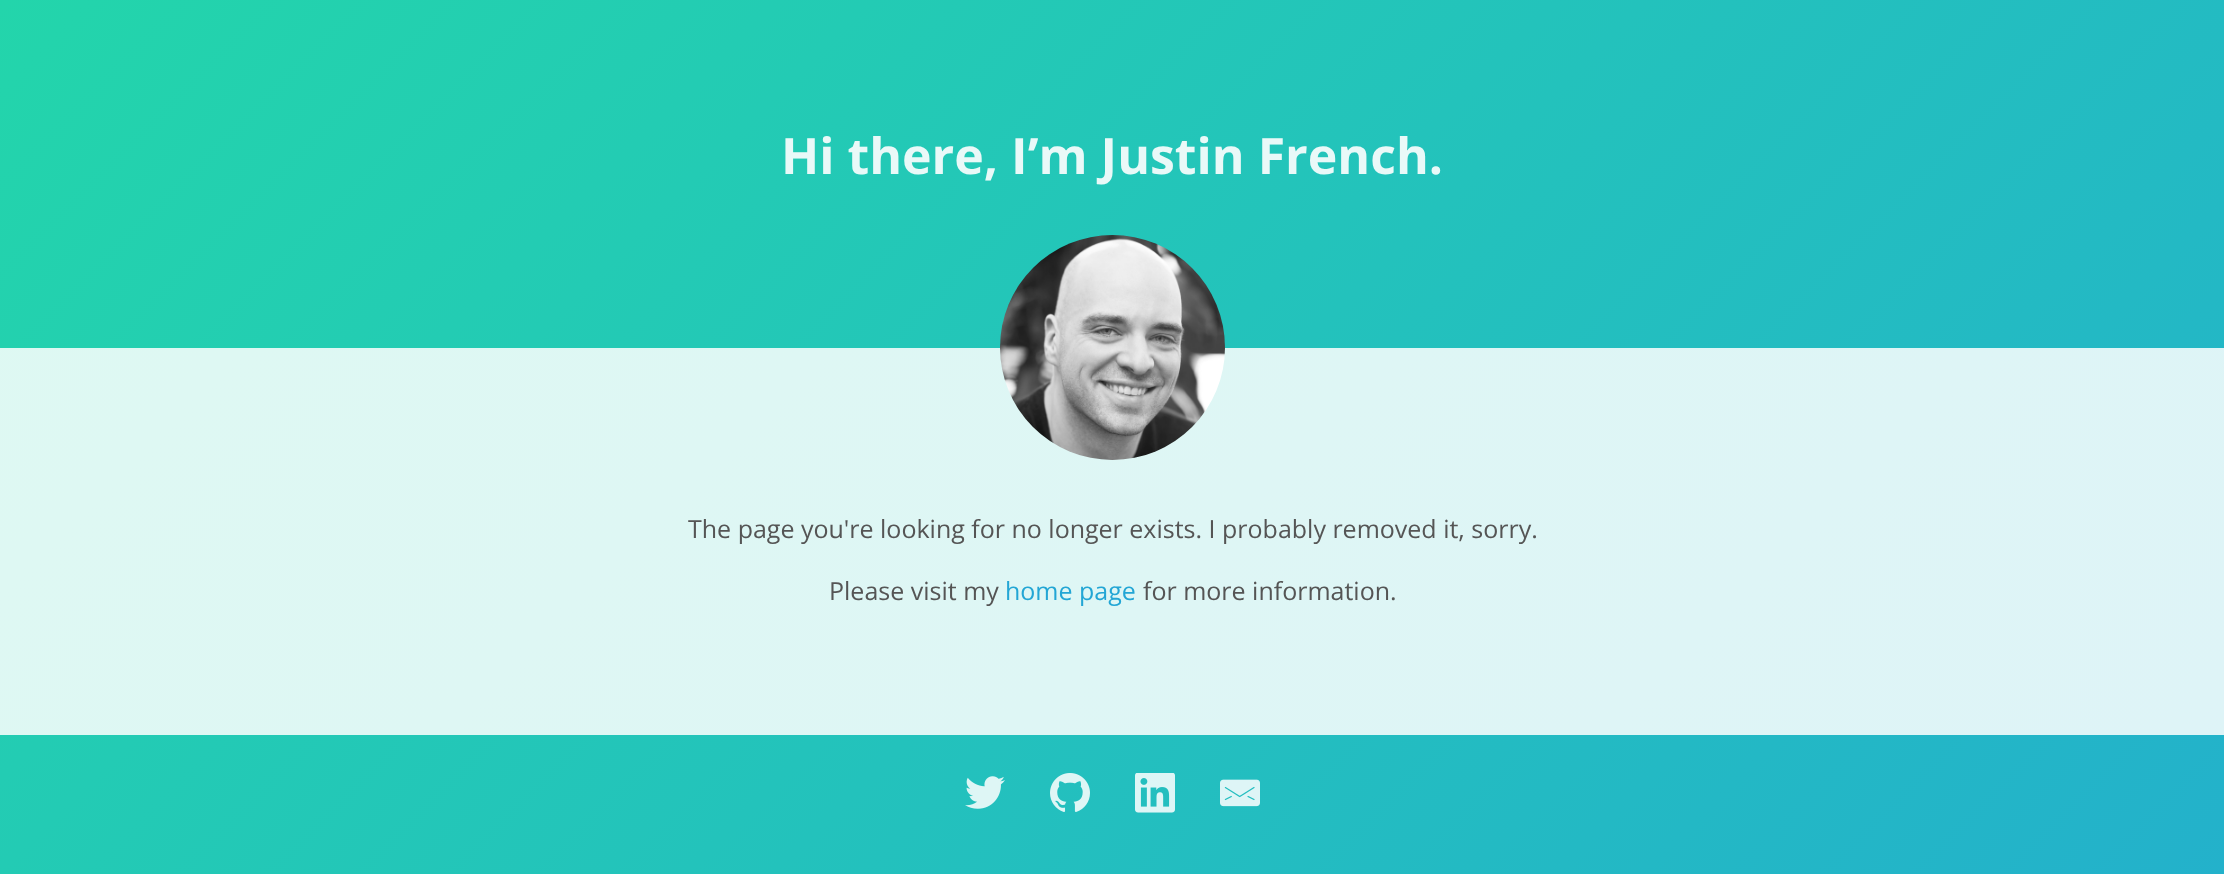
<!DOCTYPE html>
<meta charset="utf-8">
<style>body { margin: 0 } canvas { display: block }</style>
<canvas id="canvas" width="2224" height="874"></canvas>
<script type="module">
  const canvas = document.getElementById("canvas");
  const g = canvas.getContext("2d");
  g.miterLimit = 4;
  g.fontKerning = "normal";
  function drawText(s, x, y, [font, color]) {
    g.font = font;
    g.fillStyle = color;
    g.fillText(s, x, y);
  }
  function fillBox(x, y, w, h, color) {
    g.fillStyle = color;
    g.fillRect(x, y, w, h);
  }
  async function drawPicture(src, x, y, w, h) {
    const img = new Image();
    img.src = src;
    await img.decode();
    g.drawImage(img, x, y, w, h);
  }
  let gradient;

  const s1 = ["bold 50px Open Sans", "#E9F9F8"];
  const s2 = ["25px Open Sans", "#555555"];
  const s3 = ["25px Open Sans", "#23A6D5"];

  fillBox(0, 0, 2224, 874, "#FFFFFF");
  gradient = g.createLinearGradient(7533, 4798, 1368, -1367);
  gradient.addColorStop(0, "#EE7752");
  gradient.addColorStop(0.33, "#E73C7E");
  gradient.addColorStop(0.67, "#23A6D5");
  gradient.addColorStop(1, "#23D5AB");
  g.fillStyle = gradient;
  g.fillRect(0, 0, 2224, 874);
  gradient = g.createLinearGradient(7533, 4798, 1368, -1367);
  gradient.addColorStop(0, "#FCEBE5");
  gradient.addColorStop(0.33, "#FBE2EC");
  gradient.addColorStop(0.67, "#DEF2F9");
  gradient.addColorStop(1, "#DEF9F2");
  g.fillStyle = gradient;
  g.fillRect(0, 348, 2224, 387);
  drawText("Hi there, I’m Justin French.", 781, 174, s1);
  await drawPicture("pic1.png", 1000, 235, 225, 225);
  drawText("The page you're looking for no longer exists. I probably removed it, sorry.", 688, 538, s2);
  drawText("Please visit my", 829, 600, s2);
  drawText("home page", 1005, 600, s3);
  drawText("for more information.", 1143, 600, s2);
  await drawPicture("pic2.png", 965, 776, 40, 33);
  await drawPicture("pic3.png", 1050, 773, 40, 39);
  await drawPicture("pic4.png", 1135, 773, 40, 40);
  await drawPicture("pic5.png", 1220, 779, 40, 28);
</script>
